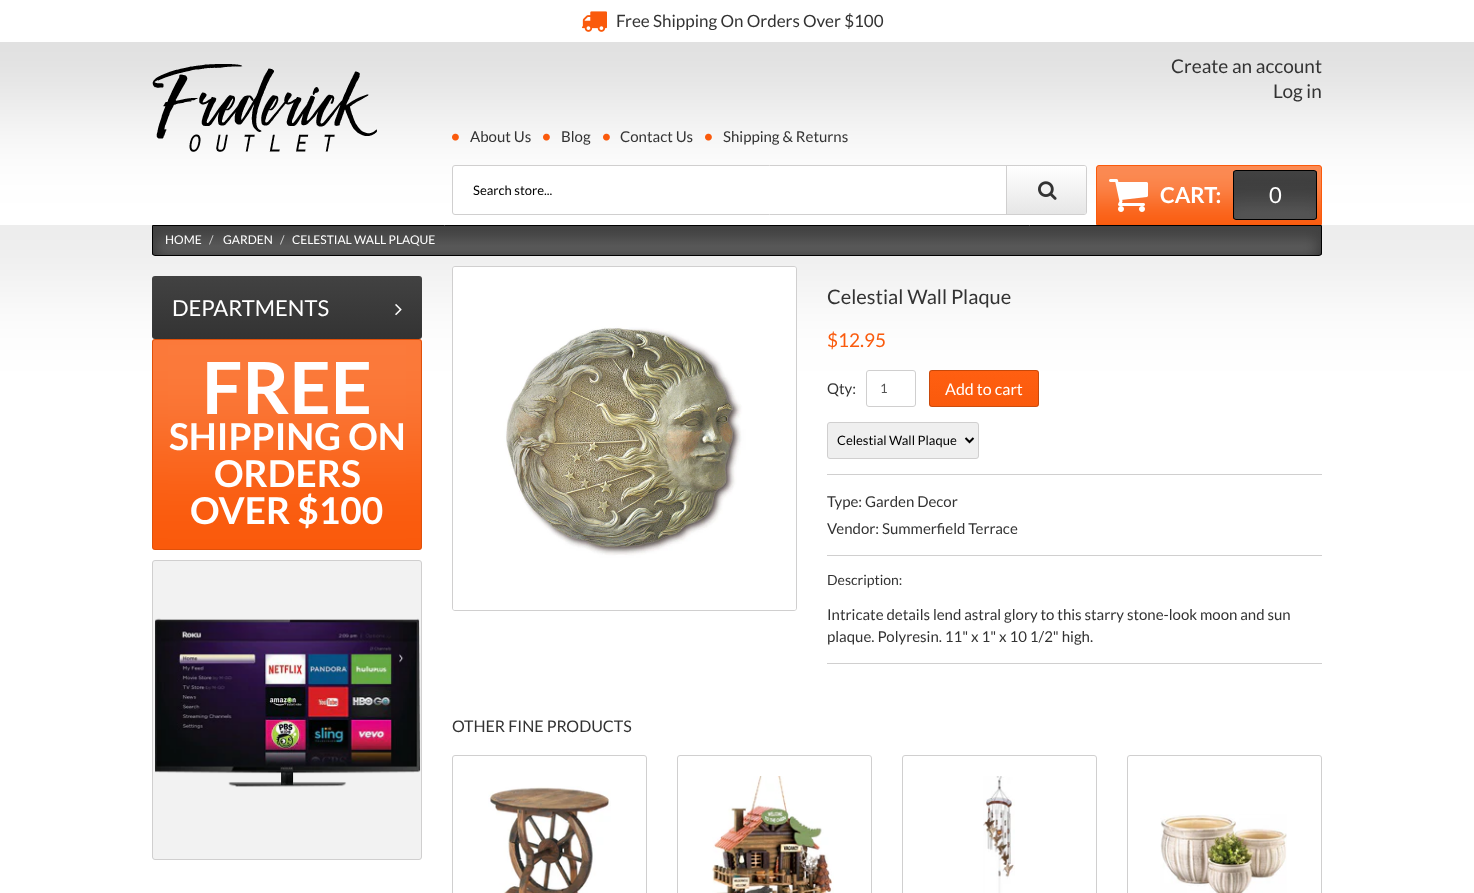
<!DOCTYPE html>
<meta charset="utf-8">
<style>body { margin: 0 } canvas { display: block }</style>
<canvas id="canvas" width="1474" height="893"></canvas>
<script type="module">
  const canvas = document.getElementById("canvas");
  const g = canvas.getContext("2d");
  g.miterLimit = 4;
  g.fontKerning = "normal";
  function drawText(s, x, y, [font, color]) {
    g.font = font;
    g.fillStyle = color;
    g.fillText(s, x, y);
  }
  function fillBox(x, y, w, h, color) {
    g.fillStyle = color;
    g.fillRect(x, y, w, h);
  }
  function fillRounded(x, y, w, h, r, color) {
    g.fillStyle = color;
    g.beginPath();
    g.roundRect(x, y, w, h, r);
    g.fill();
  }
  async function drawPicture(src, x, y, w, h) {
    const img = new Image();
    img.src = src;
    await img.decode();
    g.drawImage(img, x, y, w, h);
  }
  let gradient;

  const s1 = ["17px Lato", "#333333"];
  const s2 = ["19px Lato", "#333333"];
  const s3 = ["15px Lato", "#333333"];
  const s4 = ["13px Lato", "#000000"];
  const s5 = ["bold 22px Lato", "#FFFFFF"];
  const s6 = ["22px Lato", "#FFFFFF"];
  const s7 = ["12px Lato", "#FFFFFF"];
  const s8 = ["12px Lato", "#CCCCCC"];
  const s9 = ["bold 72px Lato", "#FFFFFF"];
  const s10 = ["bold 37px Lato", "#FFFFFF"];
  const s11 = ["20px Lato", "#333333"];
  const s12 = ["19px Lato", "#FA5A0C"];
  const s13 = ["13px Lato", "#555555"];
  const s14 = ["16px Lato", "#FFFFFF"];
  const s15 = ["14px Lato", "#333333"];
  const s16 = ["16px Lato", "#333333"];

  fillBox(0, 0, 1474, 893, "#FFFFFF");
  g.save();
  g.beginPath();
  g.rect(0, 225, 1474, 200);
  g.clip();
  g.fillStyle = "rgba(0, 0, 0, 0.1)";
  g.filter = "blur(50px)";
  g.beginPath();
  g.rect(-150, 175, 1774, 100);
  g.fill();
  g.filter = "none";
  g.restore();
  await drawPicture("pic1.png", 581, 11, 26, 21);
  drawText("Free Shipping On Orders Over $100", 616, 27, s1);
  g.save();
  g.beginPath();
  g.roundRect(152, 225, 1170, 31, [0, 0, 3, 3]);
  g.clip();
  gradient = g.createLinearGradient(737, 226, 737, 255);
  gradient.addColorStop(0, "#424242");
  gradient.addColorStop(1, "#333333");
  g.fillStyle = gradient;
  g.fillRect(152, 226, 1170, 29);
  g.restore();
  g.beginPath();
  g.roundRect(152.5, 225.5, 1169, 30, [0, 0, 2.5, 2.5]);
  g.strokeStyle = "#000000";
  g.stroke();
  g.save();
  g.beginPath();
  g.rect(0, 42, 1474, 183);
  g.clip();
  g.fillStyle = "rgba(0, 0, 0, 0.15)";
  g.filter = "blur(50px)";
  g.beginPath();
  g.rect(-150, -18, 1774, 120);
  g.fill();
  g.filter = "none";
  g.restore();
  fillRounded(152, 339, 270, 211, 3, "#FA5A0C");
  g.beginPath();
  g.roundRect(152.5, 339.5, 269, 210, 2.5);
  g.strokeStyle = "rgba(0, 0, 0, 0.1)";
  g.stroke();
  g.save();
  g.beginPath();
  g.moveTo(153, 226);
  g.lineTo(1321, 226);
  g.lineTo(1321, 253);
  g.bezierCurveTo(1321, 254, 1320, 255, 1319, 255);
  g.lineTo(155, 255);
  g.bezierCurveTo(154, 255, 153, 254, 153, 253);
  g.closePath();
  g.clip();
  g.fillStyle = "rgba(255, 255, 255, 0.2)";
  g.filter = "blur(7.5px)";
  g.beginPath();
  g.rect(155, 239, 1164, 20);
  g.fill();
  g.filter = "none";
  g.restore();
  g.beginPath();
  g.roundRect(452.5, 266.5, 344, 344, 2.5);
  g.strokeStyle = "#D0CFCF";
  g.stroke();
  await drawPicture("pic8.png", 453, 267, 343, 343);
  g.save();
  g.beginPath();
  g.roundRect(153, 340, 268, 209, 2);
  g.clip();
  g.fillStyle = "rgba(255, 255, 255, 0.2)";
  g.filter = "blur(50px)";
  g.beginPath();
  g.rect(63, 250, 448, 200);
  g.fill();
  g.filter = "none";
  g.restore();
  await drawPicture("pic2.png", 152, 64, 225, 88);
  drawText("Create an account", 1171, 73, s2);
  drawText("Log in", 1273, 98, s2);
  await drawPicture("pic3.png", 452, 133, 7, 8);
  drawText("About Us", 470, 142, s3);
  await drawPicture("pic3.png", 543, 133, 7, 8);
  drawText("Blog", 561, 142, s3);
  await drawPicture("pic3.png", 603, 133, 7, 8);
  drawText("Contact Us", 620, 142, s3);
  await drawPicture("pic3.png", 705, 133, 7, 8);
  drawText("Shipping & Returns", 723, 142, s3);
  g.fillStyle = "#FFFFFF";
  g.beginPath();
  g.roundRect(452.5, 165.5, 634, 49, 2.5);
  g.fill();
  g.stroke();
  drawText("Search store...", 473, 195, s4);
  gradient = g.createLinearGradient(1047, 166, 1047, 214);
  gradient.addColorStop(0, "#FFFFFF");
  gradient.addColorStop(1, "#E6E6E6");
  g.fillStyle = gradient;
  g.beginPath();
  g.roundRect(1006, 166, 80, 48, [0, 2, 2, 0]);
  g.fill();
  fillBox(1006, 166, 1, 48, "#D0CFCF");
  await drawPicture("pic4.png", 1038, 181, 19, 19);
  g.fillStyle = "#FA5A0C";
  g.beginPath();
  g.roundRect(1096.5, 165.5, 225, 59, [2.5, 2.5, 0, 0]);
  g.fill();
  g.strokeStyle = "#FA5A0C";
  g.stroke();
  g.save();
  g.beginPath();
  g.moveTo(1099, 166);
  g.lineTo(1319, 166);
  g.bezierCurveTo(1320, 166, 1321, 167, 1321, 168);
  g.lineTo(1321, 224);
  g.lineTo(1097, 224);
  g.lineTo(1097, 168);
  g.bezierCurveTo(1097, 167, 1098, 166, 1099, 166);
  g.closePath();
  g.clip();
  g.fillStyle = "rgba(255, 255, 255, 0.3)";
  g.filter = "blur(17.5px)";
  g.beginPath();
  g.rect(1062, 131, 294, 70);
  g.fill();
  g.filter = "none";
  g.restore();
  await drawPicture("pic5.png", 1109, 179, 39, 33);
  drawText("CART:", 1160, 203, s5);
  g.save();
  g.beginPath();
  g.roundRect(1233, 170, 84, 50, 3);
  g.clip();
  gradient = g.createLinearGradient(1275, 171, 1275, 219);
  gradient.addColorStop(0, "#424242");
  gradient.addColorStop(1, "#333333");
  g.fillStyle = gradient;
  g.fillRect(1233, 171, 84, 48);
  g.restore();
  g.beginPath();
  g.roundRect(1233.5, 170.5, 83, 49, 2.5);
  g.strokeStyle = "#000000";
  g.stroke();
  g.save();
  g.beginPath();
  g.roundRect(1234, 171, 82, 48, 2);
  g.clip();
  g.fillStyle = "rgba(255, 255, 255, 0.2)";
  g.filter = "blur(12.5px)";
  g.beginPath();
  g.rect(1219, 203, 112, 30);
  g.fill();
  g.filter = "none";
  g.restore();
  drawText("0", 1269, 203, s6);
  drawText("HOME", 165, 244, s7);
  drawText("/", 209, 244, s8);
  drawText("GARDEN", 223, 244, s7);
  drawText("/", 280, 244, s8);
  drawText("CELESTIAL WALL PLAQUE", 292, 244, s7);
  gradient = g.createLinearGradient(287, 276, 287, 339);
  gradient.addColorStop(0, "#424242");
  gradient.addColorStop(1, "#333333");
  g.fillStyle = gradient;
  g.beginPath();
  g.roundRect(152, 276, 270, 63, 3);
  g.fill();
  drawText("DEPARTMENTS", 172, 316, s6);
  await drawPicture("pic6.png", 395, 304, 7, 12);
  drawText("FREE", 202, 414, s9);
  drawText("SHIPPING ON", 169, 450, s10);
  drawText("ORDERS", 214, 487, s10);
  drawText("OVER $100", 190, 524, s10);
  g.fillStyle = "#F2F2F2";
  g.beginPath();
  g.roundRect(152.5, 560.5, 269, 299, 2.5);
  g.fill();
  g.strokeStyle = "#D0CFCF";
  g.stroke();
  await drawPicture("pic7.png", 155, 618, 266, 169);
  drawText("Celestial Wall Plaque", 827, 304, s11);
  drawText("$12.95", 827, 347, s12);
  drawText("Qty:", 827, 394, s3);
  g.beginPath();
  g.roundRect(866.5, 370.5, 49, 36, 2.5);
  g.stroke();
  drawText("1", 880, 393, s13);
  g.save();
  g.beginPath();
  g.roundRect(929, 370, 110, 37, 3);
  g.clip();
  gradient = g.createLinearGradient(984, 336, 984, 371);
  gradient.addColorStop(0, "#FF5F11");
  gradient.addColorStop(1, "#FA5A0C");
  g.fillStyle = gradient;
  g.fillRect(929, 370, 110, 1);
  gradient = g.createLinearGradient(984, 371, 984, 406);
  gradient.addColorStop(0, "#FF5F11");
  gradient.addColorStop(1, "#FA5A0C");
  g.fillStyle = gradient;
  g.fillRect(929, 371, 110, 35);
  gradient = g.createLinearGradient(984, 406, 984, 441);
  gradient.addColorStop(0, "#FF5F11");
  gradient.addColorStop(1, "#FA5A0C");
  g.fillStyle = gradient;
  g.fillRect(929, 406, 110, 1);
  g.restore();
  g.beginPath();
  g.roundRect(929.5, 370.5, 109, 36, 2.5);
  g.strokeStyle = "rgba(0, 0, 0, 0.2)";
  g.stroke();
  drawText("Add to cart", 945, 395, s14);
  g.fillStyle = "#EFEFEF";
  g.beginPath();
  g.roundRect(827.5, 422.5, 151, 36, 2.5);
  g.fill();
  g.strokeStyle = "#D0CFCF";
  g.stroke();
  g.beginPath();
  g.moveTo(965.5, 438);
  g.lineTo(969.5, 442);
  g.lineTo(973.5, 438);
  g.strokeStyle = "#000000";
  g.lineWidth = 2;
  g.stroke();
  drawText("Celestial Wall Plaque", 837, 445, s4);
  fillBox(827, 474, 495, 1, "#D0CFCF");
  fillBox(827, 555, 495, 1, "#D0CFCF");
  drawText("Type: Garden Decor", 827, 507, s3);
  drawText("Vendor: Summerfield Terrace", 827, 534, s3);
  drawText("Description:", 827, 585, s15);
  drawText("Intricate details lend astral glory to this starry stone-look moon and sun", 827, 620, s3);
  drawText("plaque. Polyresin. 11\" x 1\" x 10 1/2\" high.", 827, 642, s3);
  fillBox(827, 663, 495, 1, "#D0CFCF");
  drawText("OTHER FINE PRODUCTS", 452, 732, s16);
  g.beginPath();
  g.roundRect(452.5, 755.5, 194, 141, 2.5);
  g.strokeStyle = "#D0CFCF";
  g.lineWidth = 1;
  g.stroke();
  await drawPicture("pic9.png", 488, 786, 123, 107);
  g.beginPath();
  g.roundRect(677.5, 755.5, 194, 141, 2.5);
  g.stroke();
  await drawPicture("pic10.png", 712, 776, 122, 117);
  g.beginPath();
  g.roundRect(902.5, 755.5, 194, 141, 2.5);
  g.stroke();
  await drawPicture("pic11.png", 983, 776, 32, 117);
  g.beginPath();
  g.roundRect(1127.5, 755.5, 194, 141, 2.5);
  g.stroke();
  await drawPicture("pic12.png", 1160, 814, 127, 79);
</script>
